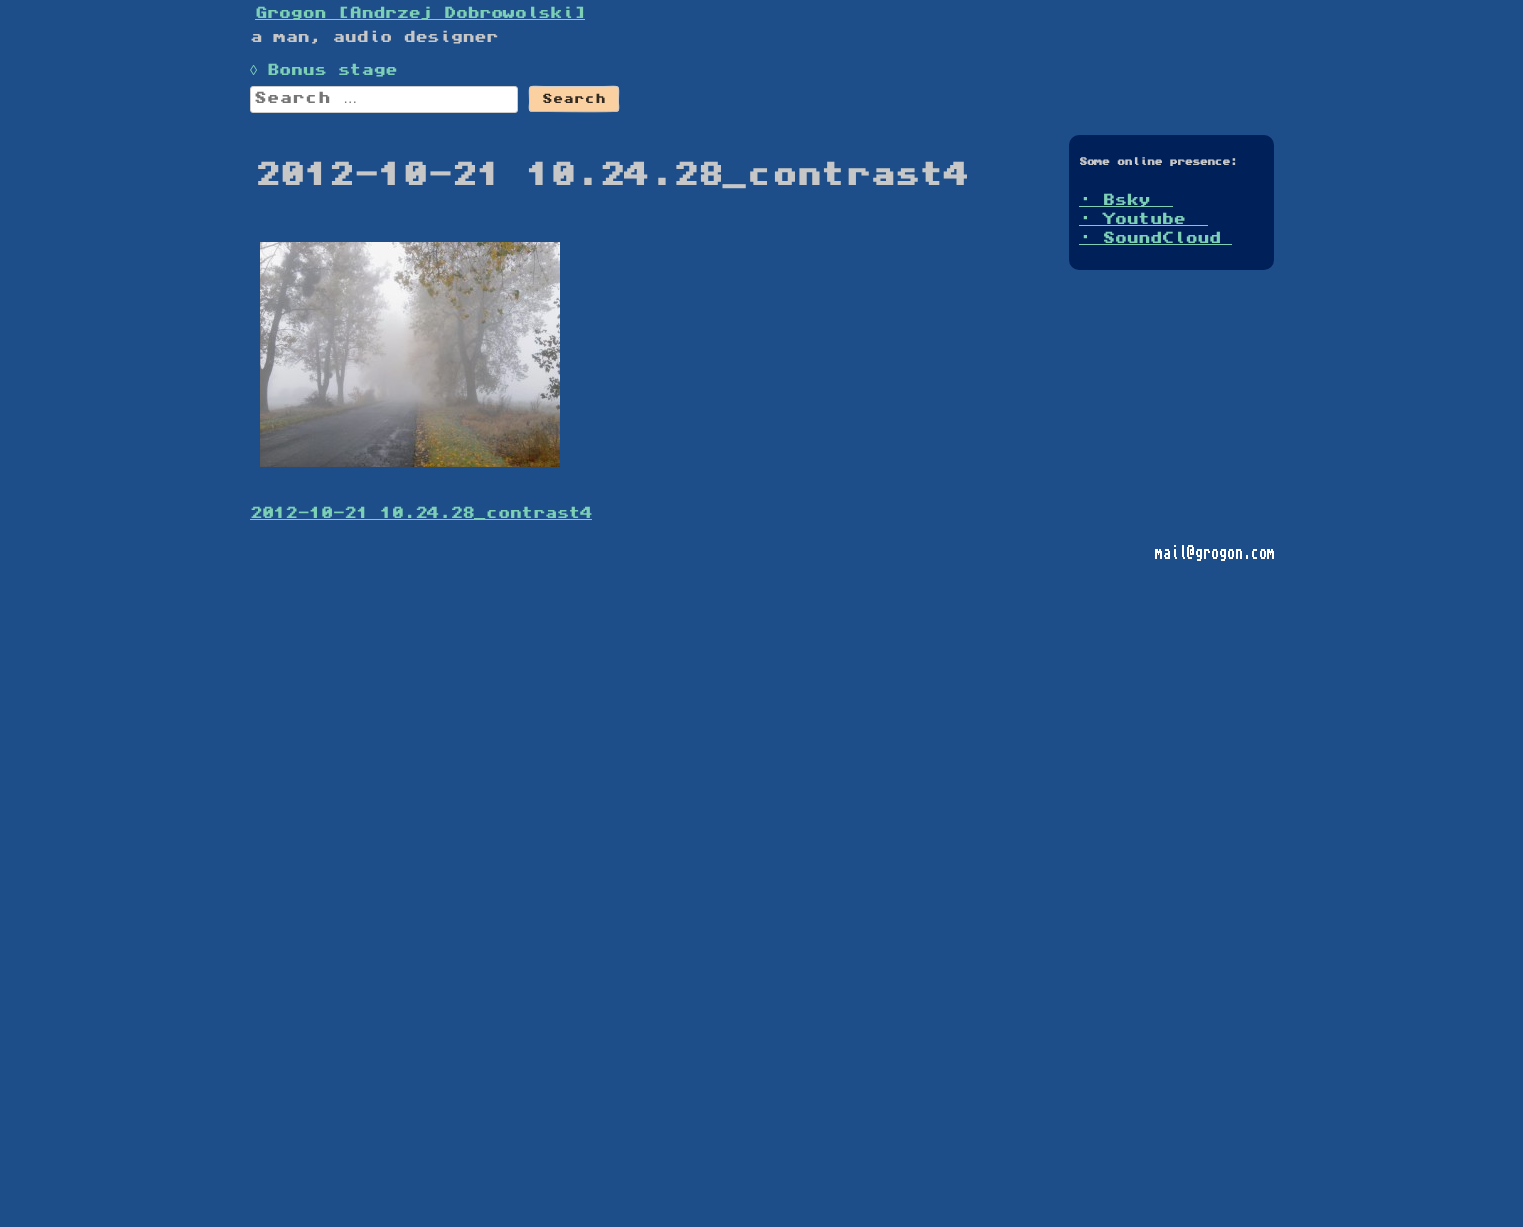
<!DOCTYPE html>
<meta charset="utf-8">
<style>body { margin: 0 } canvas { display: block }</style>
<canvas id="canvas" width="1523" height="1227"></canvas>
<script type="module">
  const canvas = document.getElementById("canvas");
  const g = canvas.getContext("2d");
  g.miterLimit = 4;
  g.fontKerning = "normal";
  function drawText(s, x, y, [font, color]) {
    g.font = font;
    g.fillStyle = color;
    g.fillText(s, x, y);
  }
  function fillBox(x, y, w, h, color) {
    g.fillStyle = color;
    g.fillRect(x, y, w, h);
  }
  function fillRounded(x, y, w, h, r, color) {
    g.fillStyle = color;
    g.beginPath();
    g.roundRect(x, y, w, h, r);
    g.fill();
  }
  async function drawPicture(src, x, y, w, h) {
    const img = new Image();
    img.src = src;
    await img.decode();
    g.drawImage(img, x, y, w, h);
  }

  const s1 = ["14.4px 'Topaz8'", "#7DCFB6"];
  const s2 = ["14.4px 'Topaz8'", "#C7C7C7"];
  const s3 = ["14.4px Liberation Sans", "#7DCFB6"];
  const s4 = ["14.4px 'Topaz8'", "#757575"];
  const s5 = ["14.4px Liberation Sans", "#757575"];
  const s6 = ["12px 'Topaz8'", "#322A20"];
  const s7 = ["bold 28.8px 'Topaz8'", "#C7C7C7"];
  const s8 = ["bold 9.6px 'Topaz8'", "#C7C7C7"];

  fillBox(0, 0, 1523, 1227, "#1D4E89");
  fillBox(255, 19, 330, 1, "#7DCFB6");
  g.letterSpacing = "-1px";
  drawText("Grogon [Andrzej Dobrowolski]", 255, 18, s1);
  drawText("a man, audio designer", 250, 42, s2);
  drawText("◊", 250, 75, s3);
  drawText("Bonus stage", 267, 75, s1);
  g.fillStyle = "#FFFFFF";
  g.beginPath();
  g.roundRect(250.5, 86.5, 267, 26, 2.5);
  g.fill();
  g.strokeStyle = "#CCCCCC";
  g.stroke();
  g.letterSpacing = "0px";
  drawText("Search", 254, 103, s4);
  drawText("…", 343, 103, s5);
  fillRounded(529, 86, 90, 26, 3, "#FBD1A2");
  g.beginPath();
  g.moveTo(618, 111);
  g.lineTo(617.5, 111);
  g.bezierCurveTo(615.5, 112.5, 553.5, 111.5, 546, 111.5);
  g.lineTo(532, 111.5);
  g.lineTo(530, 111);
  g.strokeStyle = "#BBBBBB";
  g.stroke();
  g.beginPath();
  g.moveTo(530, 111);
  g.bezierCurveTo(528.5, 109, 529.5, 104.5, 529.5, 102.5);
  g.bezierCurveTo(529.5, 83, 526, 86.5, 546, 86.5);
  g.lineTo(602, 86.5);
  g.bezierCurveTo(622, 86.5, 618.5, 83, 618.5, 102.5);
  g.bezierCurveTo(618.5, 104.5, 619.5, 109, 618, 111);
  g.strokeStyle = "#CCCCCC";
  g.stroke();
  drawText("Search", 542, 103, s6);
  g.letterSpacing = "-1px";
  drawText("2012-10-21 10.24.28_contrast4", 255, 185, s7);
  await drawPicture("pic1.png", 260, 242, 300, 225);
  fillBox(250, 519, 342, 1, "#7DCFB6");
  drawText("2012-10-21 10.24.28_contrast4", 250, 518, s1);
  fillRounded(1069, 135, 205, 135, 10, "#00205A");
  drawText("Some online presence:", 1079, 165, s8);
  fillBox(1079, 206, 94, 1, "#7DCFB6");
  drawText("· Bsky", 1079, 205, s1);
  drawText("· Youtube", 1079, 224, s1);
  fillBox(1079, 225, 129, 1, "#7DCFB6");
  drawText("· SoundCloud", 1079, 243, s1);
  fillBox(1079, 244, 153, 1, "#7DCFB6");
  await drawPicture("pic2.png", 1155, 545, 119, 16);
</script>
